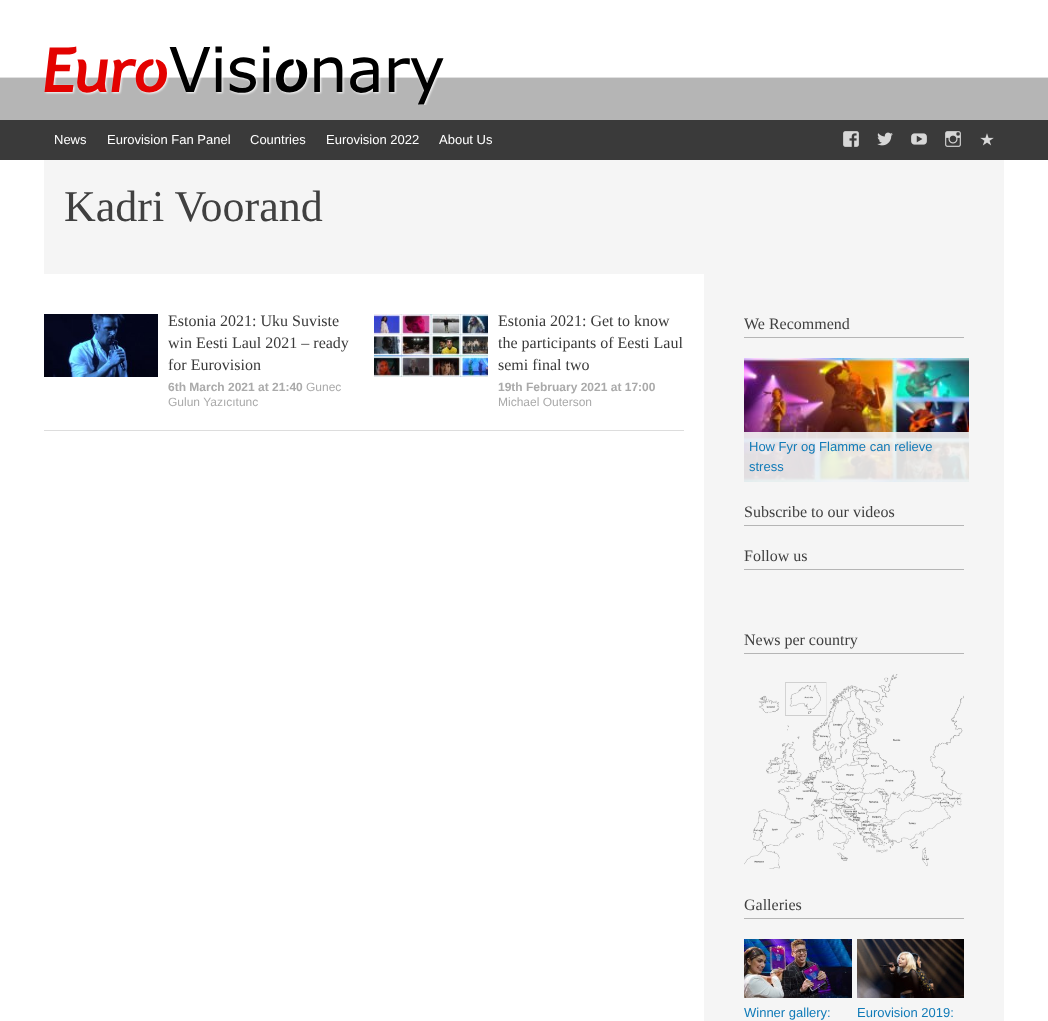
<!DOCTYPE html>
<meta charset="utf-8">
<style>body { margin: 0 } canvas { display: block }</style>
<canvas id="canvas" width="1048" height="1021"></canvas>
<script type="module">
  const canvas = document.getElementById("canvas");
  const g = canvas.getContext("2d");
  g.miterLimit = 4;
  g.fontKerning = "normal";
  function drawText(s, x, y, [font, color]) {
    g.font = font;
    g.fillStyle = color;
    g.fillText(s, x, y);
  }
  function fillBox(x, y, w, h, color) {
    g.fillStyle = color;
    g.fillRect(x, y, w, h);
  }
  async function drawPicture(src, x, y, w, h) {
    const img = new Image();
    img.src = src;
    await img.decode();
    g.drawImage(img, x, y, w, h);
  }

  const s1 = ["13px Liberation Sans", "#FFFFFF"];
  const s2 = ["44px Liberation Serif", "#404040"];
  const s3 = ["16px Liberation Serif", "#3A3A3A"];
  const s4 = ["bold 12px Liberation Sans", "#AAAAAA"];
  const s5 = ["12px Liberation Sans", "#AAAAAA"];
  const s6 = ["16px Liberation Serif", "#404040"];
  const s7 = ["13px Liberation Sans", "#117BB8"];

  fillBox(0, 0, 1048, 1021, "#FFFFFF");
  await drawPicture("pic1.png", 0, 77, 1048, 83);
  await drawPicture("pic2.png", 44, 46, 400, 59);
  drawText("News", 54, 144, s1);
  drawText("Eurovision Fan Panel", 107, 144, s1);
  drawText("Countries", 250, 144, s1);
  drawText("Eurovision 2022", 326, 144, s1);
  drawText("About Us", 439, 144, s1);
  await drawPicture("pic3.png", 843, 131, 16, 16);
  await drawPicture("pic4.png", 877, 132, 16, 14);
  await drawPicture("pic5.png", 911, 133, 16, 12);
  await drawPicture("pic6.png", 945, 131, 16, 16);
  await drawPicture("pic7.png", 980, 133, 14, 13);
  fillBox(44, 160, 960, 114, "#F5F5F5");
  drawText("Kadri Voorand", 64, 221, s2);
  fillBox(44, 430, 640, 1, "#DDDDDD");
  await drawPicture("pic8.png", 44, 314, 114, 63);
  drawText("Estonia 2021: Uku Suviste", 168, 326, s3);
  drawText("win Eesti Laul 2021 – ready", 168, 348, s3);
  drawText("for Eurovision", 168, 370, s3);
  drawText("6th March 2021 at 21:40", 168, 391, s4);
  drawText("Gunec", 306, 391, s5);
  drawText("Gulun Yazıcıtunc", 168, 406, s5);
  await drawPicture("pic9.png", 374, 314, 114, 63);
  drawText("Estonia 2021: Get to know", 498, 326, s3);
  drawText("the participants of Eesti Laul", 498, 348, s3);
  drawText("semi final two", 498, 370, s3);
  drawText("19th February 2021 at 17:00", 498, 391, s4);
  drawText("Michael Outerson", 498, 406, s5);
  fillBox(704, 274, 300, 747, "#F5F5F5");
  fillBox(744, 337, 220, 1, "#B5B5B5");
  drawText("We Recommend", 744, 329, s6);
  await drawPicture("pic10.png", 744, 358, 225, 124);
  fillBox(744, 432, 225, 50, "rgba(245, 245, 245, 0.9)");
  drawText("How Fyr og Flamme can relieve", 749, 451, s7);
  drawText("stress", 749, 471, s7);
  fillBox(744, 525, 220, 1, "#B5B5B5");
  drawText("Subscribe to our videos", 744, 517, s6);
  fillBox(744, 569, 220, 1, "#B5B5B5");
  drawText("Follow us", 744, 561, s6);
  fillBox(744, 653, 220, 1, "#B5B5B5");
  drawText("News per country", 744, 645, s6);
  await drawPicture("pic11.png", 744, 674, 220, 195);
  fillBox(744, 918, 220, 1, "#B5B5B5");
  drawText("Galleries", 744, 910, s6);
  await drawPicture("pic12.png", 744, 939, 108, 59);
  drawText("Winner gallery:", 744, 1017, s7);
  await drawPicture("pic13.png", 857, 939, 107, 59);
  drawText("Eurovision 2019:", 857, 1017, s7);
</script>
